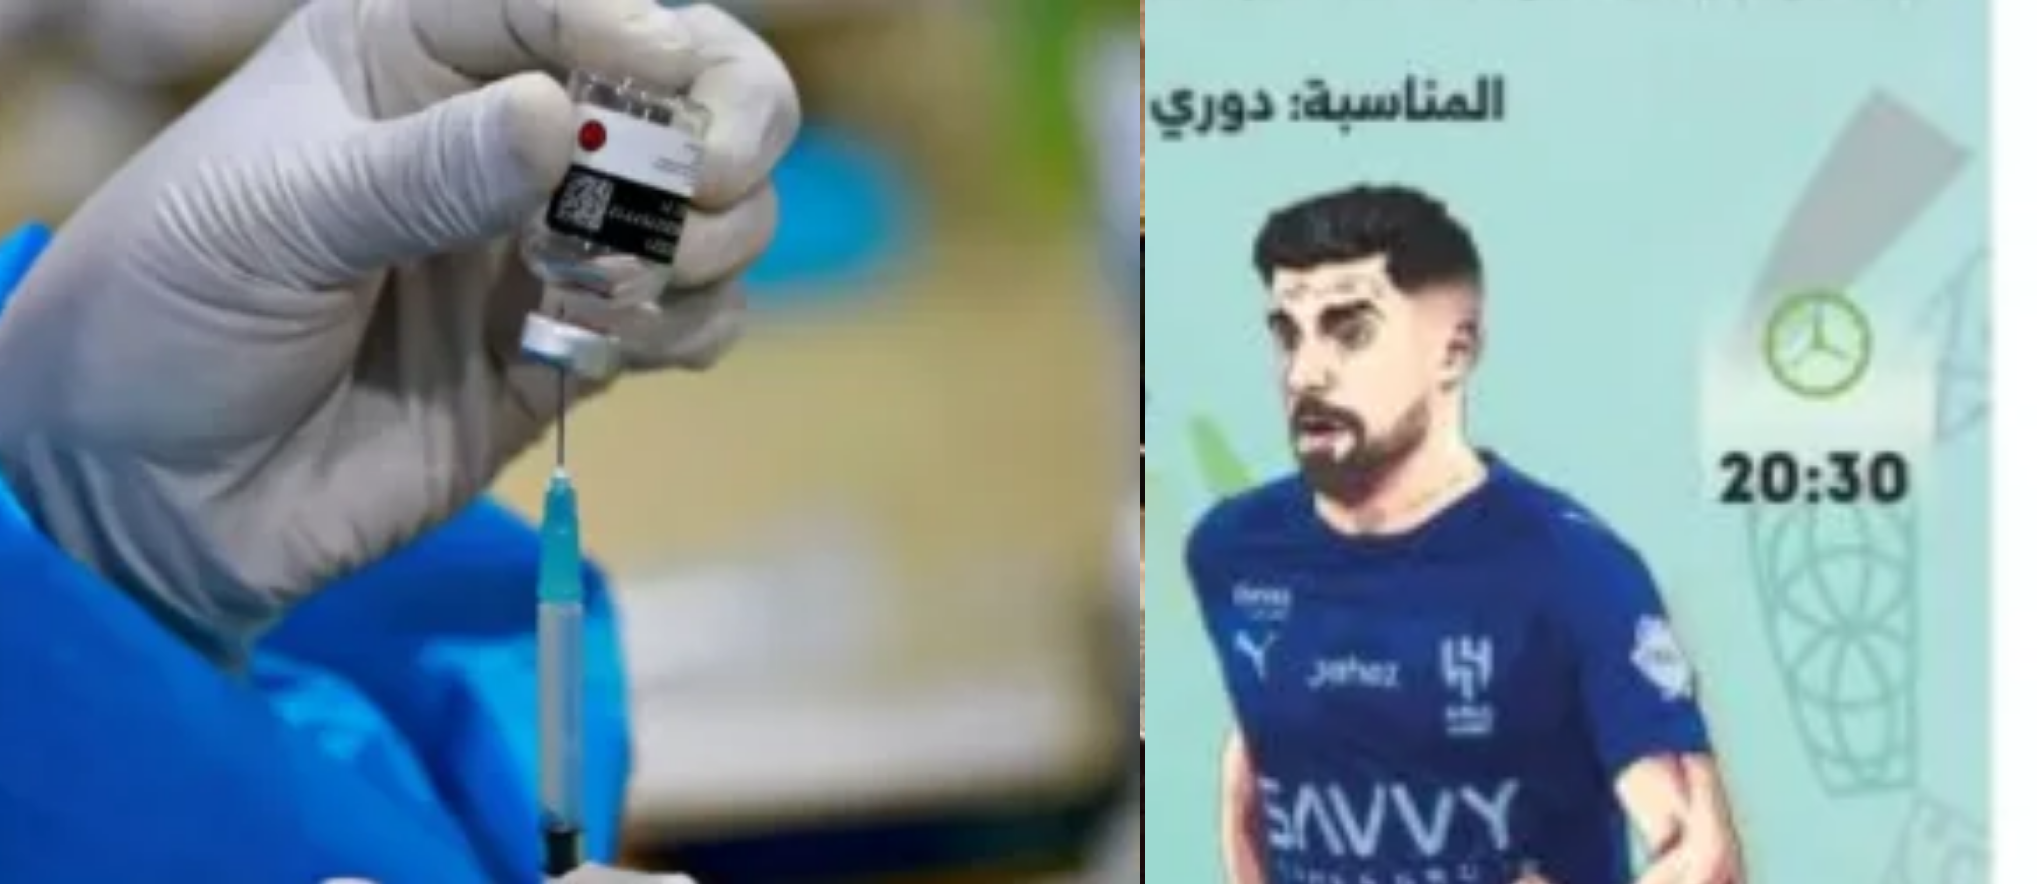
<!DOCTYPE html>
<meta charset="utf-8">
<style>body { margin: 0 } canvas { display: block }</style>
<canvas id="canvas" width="2037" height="884"></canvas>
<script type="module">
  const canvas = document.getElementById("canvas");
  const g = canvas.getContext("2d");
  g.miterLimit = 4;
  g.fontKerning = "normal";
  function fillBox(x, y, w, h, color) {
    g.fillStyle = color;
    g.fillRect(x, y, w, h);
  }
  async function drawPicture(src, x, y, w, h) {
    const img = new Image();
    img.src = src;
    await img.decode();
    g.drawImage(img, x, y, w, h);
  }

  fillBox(0, 0, 2037, 884, "#FFFFFF");
  await drawPicture("pic1.png", 0, 0, 1140, 884);
  await drawPicture("pic2.png", 1140, 0, 5, 884);
  await drawPicture("pic3.png", 1145, 0, 892, 884);
</script>
